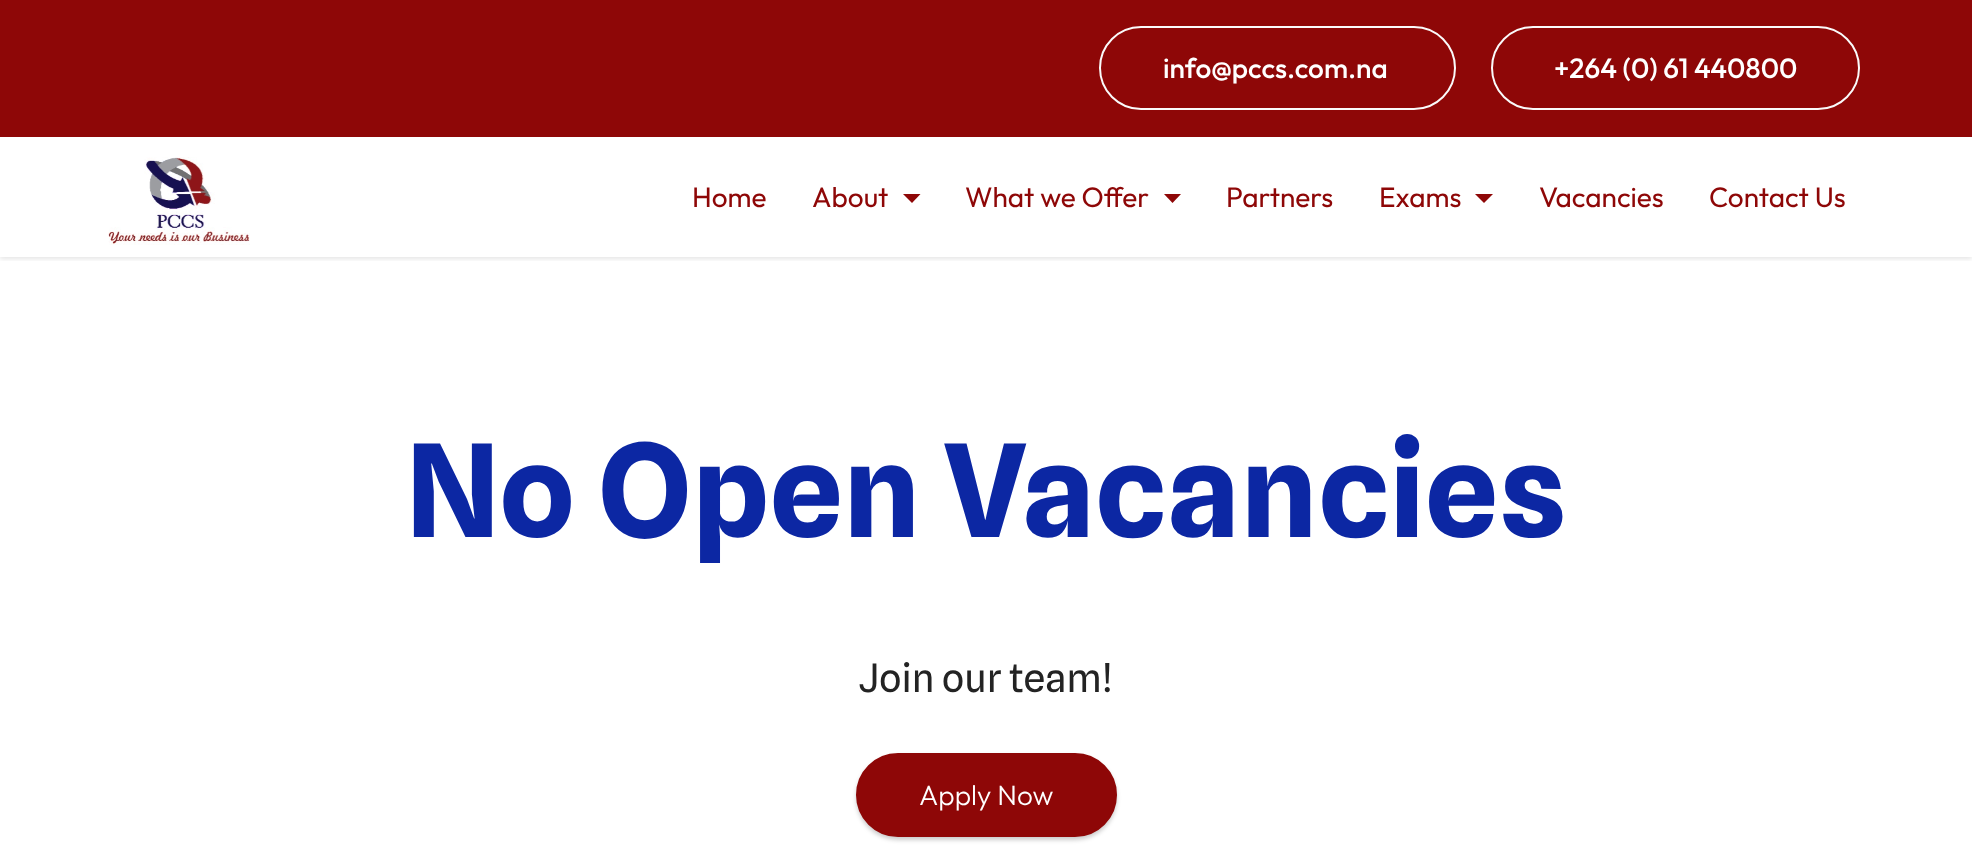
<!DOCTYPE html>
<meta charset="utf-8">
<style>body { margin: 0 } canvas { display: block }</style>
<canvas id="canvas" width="1972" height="851"></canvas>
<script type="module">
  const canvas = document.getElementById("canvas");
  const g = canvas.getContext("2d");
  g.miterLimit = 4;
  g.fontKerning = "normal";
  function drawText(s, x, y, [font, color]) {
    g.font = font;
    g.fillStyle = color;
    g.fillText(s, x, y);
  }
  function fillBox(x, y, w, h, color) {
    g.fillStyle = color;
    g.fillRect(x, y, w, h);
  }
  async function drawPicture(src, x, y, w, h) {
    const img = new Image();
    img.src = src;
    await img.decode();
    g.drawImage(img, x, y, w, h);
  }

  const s1 = ["500 28px Outfit", "#FFFFFF"];
  const s2 = ["28px Outfit", "#8E0707"];
  const s3 = ["bold 128.75px Spline Sans", "#0C27A3"];
  const s4 = ["39.25px Spline Sans", "#232323"];
  const s5 = ["300 28px Outfit", "#FFFFFF"];

  fillBox(0, 0, 1972, 851, "#FFFFFF");
  g.save();
  g.beginPath();
  g.rect(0, 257, 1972, 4);
  g.clip();
  g.fillStyle = "rgba(0, 0, 0, 0.1)";
  g.filter = "blur(2.5px)";
  g.beginPath();
  g.rect(0, 2, 1972, 257);
  g.fill();
  g.filter = "none";
  g.restore();
  fillBox(0, 0, 1972, 137, "#8E0707");
  g.beginPath();
  g.roundRect(1100, 27, 355, 82, 41);
  g.strokeStyle = "#FAFAFA";
  g.lineWidth = 2;
  g.stroke();
  drawText("info@pccs.com.na", 1163, 78, s1);
  g.beginPath();
  g.roundRect(1492, 27, 367, 82, 41);
  g.stroke();
  drawText("+264 (0) 61 440800", 1554, 78, s1);
  await drawPicture("pic1.png", 108, 157, 142, 88);
  drawText("Home", 692, 207, s2);
  drawText("About", 812, 207, s2);
  g.beginPath();
  g.moveTo(903, 194);
  g.lineTo(920.5, 194);
  g.lineTo(912, 203);
  g.closePath();
  g.fill();
  drawText("What we Offer", 965, 207, s2);
  g.beginPath();
  g.moveTo(1164, 194);
  g.lineTo(1181, 194);
  g.lineTo(1172.5, 203);
  g.closePath();
  g.fill();
  drawText("Partners", 1226, 207, s2);
  drawText("Exams", 1379, 207, s2);
  g.beginPath();
  g.moveTo(1475, 194);
  g.lineTo(1493, 194);
  g.lineTo(1484, 203);
  g.closePath();
  g.fill();
  drawText("Vacancies", 1539, 207, s2);
  drawText("Contact Us", 1709, 207, s2);
  drawText("No Open Vacancies", 405, 537, s3);
  drawText("Join our team!", 859, 692, s4);
  g.fillStyle = "rgba(0, 0, 0, 0.2)";
  g.filter = "blur(2px)";
  g.beginPath();
  g.roundRect(856, 756, 261, 84, 42);
  g.fill();
  g.filter = "none";
  g.fillStyle = "#8E0707";
  g.beginPath();
  g.roundRect(857, 754, 259, 82, 41);
  g.fill();
  g.strokeStyle = "#8E0707";
  g.stroke();
  drawText("Apply Now", 919, 805, s5);
</script>
